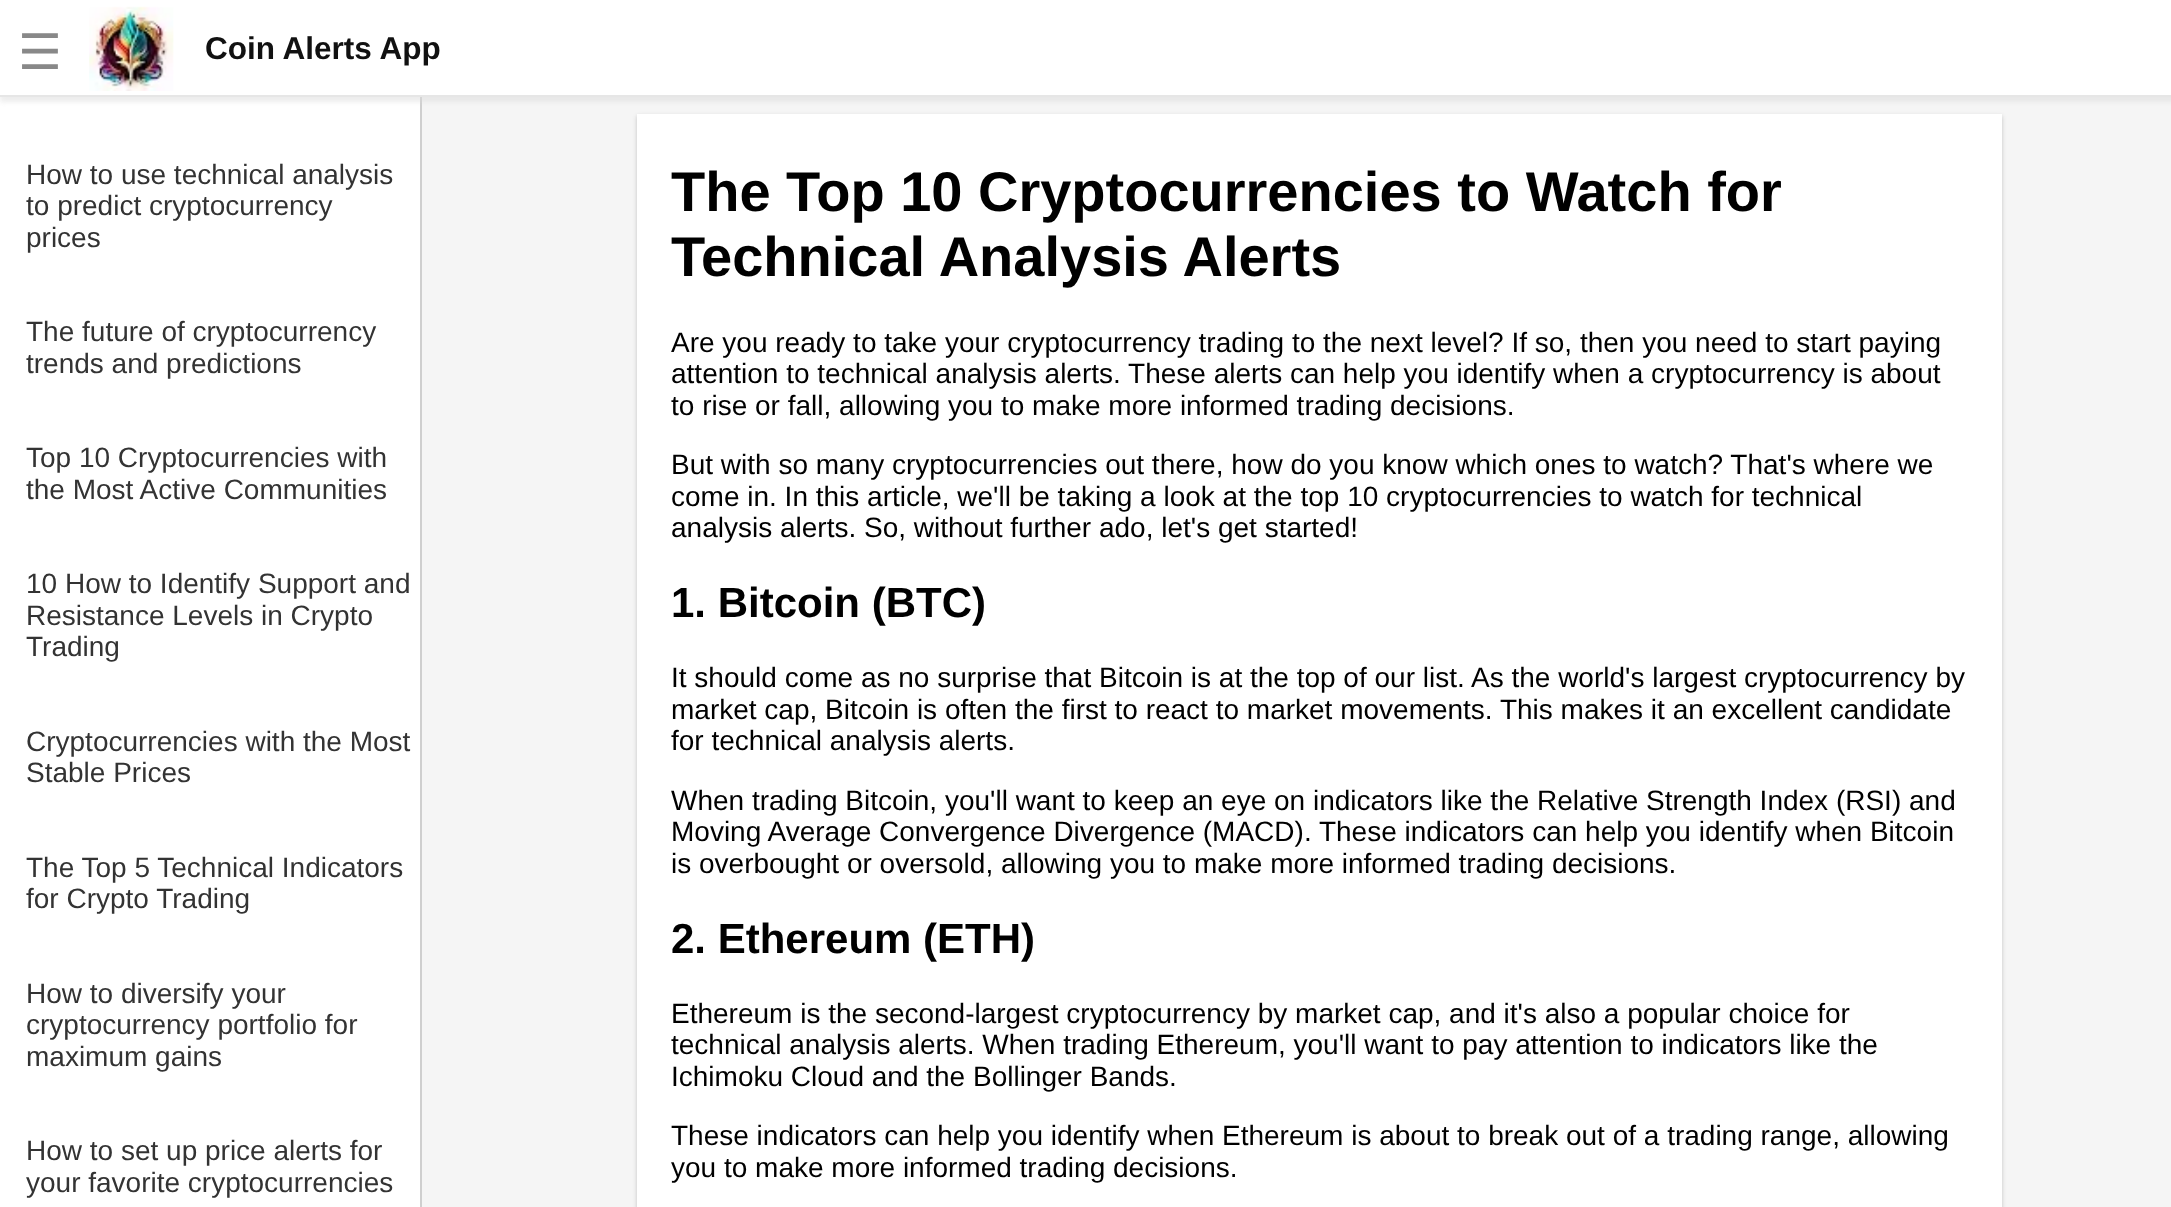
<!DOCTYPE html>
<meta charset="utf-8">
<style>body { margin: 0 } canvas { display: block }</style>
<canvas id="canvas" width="2171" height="1207"></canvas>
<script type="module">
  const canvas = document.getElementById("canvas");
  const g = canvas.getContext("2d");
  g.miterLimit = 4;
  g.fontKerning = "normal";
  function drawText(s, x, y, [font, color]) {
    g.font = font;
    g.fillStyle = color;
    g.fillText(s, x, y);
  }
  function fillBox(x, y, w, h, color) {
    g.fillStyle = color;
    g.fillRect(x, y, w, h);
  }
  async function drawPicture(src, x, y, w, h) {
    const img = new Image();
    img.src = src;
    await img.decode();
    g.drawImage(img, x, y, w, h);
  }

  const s1 = ["49px DejaVu Sans", "#888888"];
  const s2 = ["bold 31.5px Liberation Sans", "#111111"];
  const s3 = ["28px Liberation Sans", "#333333"];
  const s4 = ["bold 56px Liberation Sans", "#000000"];
  const s5 = ["28px Liberation Sans", "#000000"];
  const s6 = ["bold 42px Liberation Sans", "#000000"];

  fillBox(0, 0, 2171, 1207, "#F5F5F5");
  fillBox(0, 97, 420, 1110, "#FFFFFF");
  fillBox(420, 97, 2, 1110, "#CFCFCF");
  g.fillStyle = "rgba(220, 220, 220, 0.5)";
  g.filter = "blur(2.5px)";
  g.beginPath();
  g.rect(0, 5, 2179, 97);
  g.fill();
  g.filter = "none";
  fillBox(0, 0, 2171, 95, "#FFFFFF");
  fillBox(0, 95, 2171, 2, "#E6E6E6");
  drawText("☰", 18, 69, s1);
  await drawPicture("pic1.png", 89, 6, 85, 85);
  drawText("Coin Alerts App", 205, 59, s2);
  drawText("How to use technical analysis", 26, 184, s3);
  drawText("to predict cryptocurrency", 26, 215, s3);
  drawText("prices", 26, 247, s3);
  drawText("The future of cryptocurrency", 26, 341, s3);
  drawText("trends and predictions", 26, 373, s3);
  drawText("Top 10 Cryptocurrencies with", 26, 467, s3);
  drawText("the Most Active Communities", 26, 499, s3);
  drawText("10 How to Identify Support and", 26, 593, s3);
  drawText("Resistance Levels in Crypto", 26, 625, s3);
  drawText("Trading", 26, 656, s3);
  drawText("Cryptocurrencies with the Most", 26, 751, s3);
  drawText("Stable Prices", 26, 782, s3);
  drawText("The Top 5 Technical Indicators", 26, 877, s3);
  drawText("for Crypto Trading", 26, 908, s3);
  drawText("How to diversify your", 26, 1003, s3);
  drawText("cryptocurrency portfolio for", 26, 1034, s3);
  drawText("maximum gains", 26, 1066, s3);
  drawText("How to set up price alerts for", 26, 1160, s3);
  drawText("your favorite cryptocurrencies", 26, 1192, s3);
  g.fillStyle = "rgba(0, 0, 0, 0.2)";
  g.filter = "blur(2px)";
  g.beginPath();
  g.rect(637, 116, 1365, 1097);
  g.fill();
  g.filter = "none";
  fillBox(637, 114, 1365, 1093, "#FFFFFF");
  drawText("The Top 10 Cryptocurrencies to Watch for", 671, 211, s4);
  drawText("Technical Analysis Alerts", 671, 276, s4);
  drawText("Are you ready to take your cryptocurrency trading to the next level? If so, then you need to start paying", 671, 352, s5);
  drawText("attention to technical analysis alerts. These alerts can help you identify when a cryptocurrency is about", 671, 383, s5);
  drawText("to rise or fall, allowing you to make more informed trading decisions.", 671, 415, s5);
  drawText("But with so many cryptocurrencies out there, how do you know which ones to watch? That's where we", 671, 474, s5);
  drawText("come in. In this article, we'll be taking a look at the top 10 cryptocurrencies to watch for technical", 671, 506, s5);
  drawText("analysis alerts. So, without further ado, let's get started!", 671, 537, s5);
  drawText("1. Bitcoin (BTC)", 671, 617, s6);
  drawText("It should come as no surprise that Bitcoin is at the top of our list. As the world's largest cryptocurrency by", 671, 687, s5);
  drawText("market cap, Bitcoin is often the first to react to market movements. This makes it an excellent candidate", 671, 719, s5);
  drawText("for technical analysis alerts.", 671, 750, s5);
  drawText("When trading Bitcoin, you'll want to keep an eye on indicators like the Relative Strength Index (RSI) and", 671, 810, s5);
  drawText("Moving Average Convergence Divergence (MACD). These indicators can help you identify when Bitcoin", 671, 841, s5);
  drawText("is overbought or oversold, allowing you to make more informed trading decisions.", 671, 873, s5);
  drawText("2. Ethereum (ETH)", 671, 953, s6);
  drawText("Ethereum is the second-largest cryptocurrency by market cap, and it's also a popular choice for", 671, 1023, s5);
  drawText("technical analysis alerts. When trading Ethereum, you'll want to pay attention to indicators like the", 671, 1054, s5);
  drawText("Ichimoku Cloud and the Bollinger Bands.", 671, 1086, s5);
  drawText("These indicators can help you identify when Ethereum is about to break out of a trading range, allowing", 671, 1145, s5);
  drawText("you to make more informed trading decisions.", 671, 1177, s5);
</script>
